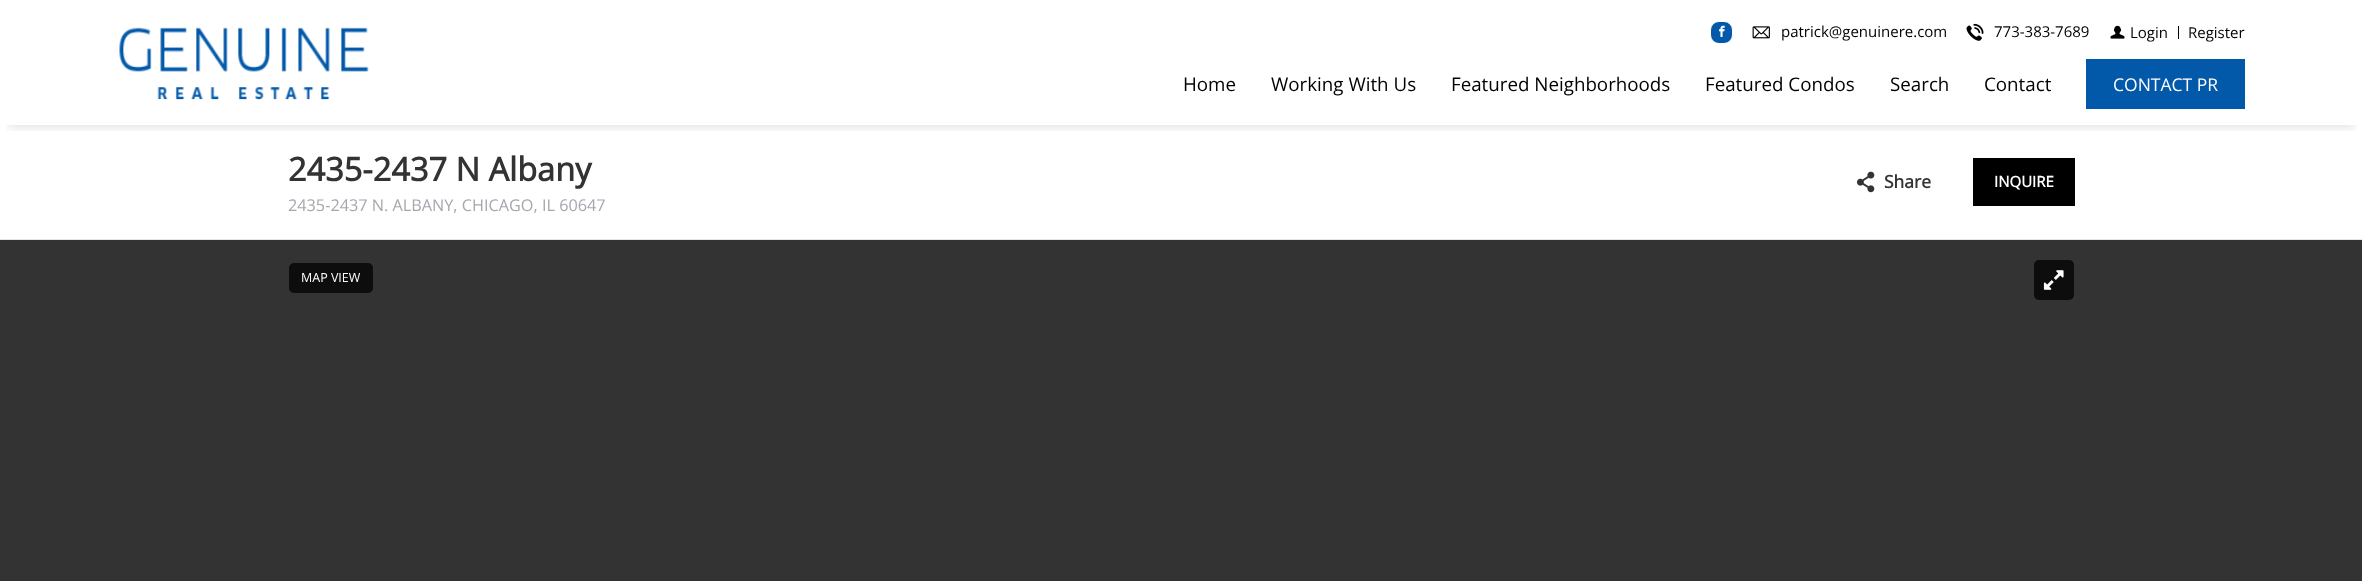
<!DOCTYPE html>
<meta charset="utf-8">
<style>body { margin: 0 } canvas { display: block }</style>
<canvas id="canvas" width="2362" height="581"></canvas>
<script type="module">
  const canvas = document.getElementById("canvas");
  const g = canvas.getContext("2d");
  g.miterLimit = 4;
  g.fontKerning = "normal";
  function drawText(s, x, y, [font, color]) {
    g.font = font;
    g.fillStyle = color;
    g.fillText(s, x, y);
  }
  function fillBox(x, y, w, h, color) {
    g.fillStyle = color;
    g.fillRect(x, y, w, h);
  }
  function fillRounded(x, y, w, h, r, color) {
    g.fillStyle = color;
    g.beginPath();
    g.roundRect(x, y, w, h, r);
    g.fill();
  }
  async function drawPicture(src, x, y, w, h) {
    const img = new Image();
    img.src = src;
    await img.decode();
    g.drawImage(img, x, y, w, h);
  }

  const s1 = ["15px Open Sans", "#000000"];
  const s2 = ["18.75px Open Sans", "#000000"];
  const s3 = ["17.5px Open Sans", "#FFFFFF"];
  const s4 = ["bold 32.5px Open Sans", "#333333"];
  const s5 = ["16.25px Open Sans", "#A7A6AE"];
  const s6 = ["bold 17.5px Open Sans", "#333333"];
  const s7 = ["bold 15px Open Sans", "#FFFFFF"];
  const s8 = ["12.5px Open Sans", "#FFFFFF"];

  fillBox(0, 0, 2362, 581, "#FFFFFF");
  g.save();
  g.beginPath();
  g.rect(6, 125, 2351, 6);
  g.clip();
  g.fillStyle = "rgba(0, 0, 0, 0.1)";
  g.filter = "blur(4px)";
  g.beginPath();
  g.rect(8, 18, 2347, 110);
  g.fill();
  g.filter = "none";
  g.restore();
  g.fillStyle = "#0259A9";
  g.beginPath();
  g.roundRect(1710.5, 21.5, 22, 22, 8.5);
  g.fill();
  g.strokeStyle = "#FFFFFF";
  g.stroke();
  await drawPicture("pic1.png", 1719, 25, 6, 12);
  await drawPicture("pic2.png", 1752, 26, 18, 13);
  drawText("patrick@genuinere.com", 1781, 37, s1);
  await drawPicture("pic3.png", 1966, 23, 18, 18);
  drawText("773-383-7689", 1994, 37, s1);
  await drawPicture("pic4.png", 2110, 25, 15, 14);
  drawText("Login", 2130, 38, s1);
  fillBox(2178, 26, 1, 13, "#000000");
  drawText("Register", 2188, 38, s1);
  await drawPicture("pic5.png", 119, 27, 250, 73);
  drawText("Home", 1183, 91, s2);
  drawText("Working With Us", 1271, 91, s2);
  drawText("Featured Neighborhoods", 1451, 91, s2);
  drawText("Featured Condos", 1705, 91, s2);
  drawText("Search", 1890, 91, s2);
  drawText("Contact", 1984, 91, s2);
  fillBox(2086, 59, 159, 50, "#0259A9");
  drawText("CONTACT PR", 2113, 91, s3);
  fillBox(0, 239, 2362, 1, "#E5E5E5");
  drawText("2435-2437 N Albany", 288, 181, s4);
  drawText("2435-2437 N. ALBANY, CHICAGO, IL 60647", 288, 211, s5);
  await drawPicture("pic6.png", 1856, 171, 19, 22);
  drawText("Share", 1884, 188, s6);
  fillBox(1973, 158, 102, 48, "#000000");
  drawText("INQUIRE", 1994, 187, s7);
  fillBox(0, 240, 2362, 341, "#333333");
  fillRounded(289, 263, 84, 30, 5, "#0D0D0D");
  drawText("MAP VIEW", 301, 282, s8);
  fillRounded(2034, 260, 40, 40, 5, "#0D0D0D");
  await drawPicture("pic7.png", 2043, 270, 21, 20);
</script>
